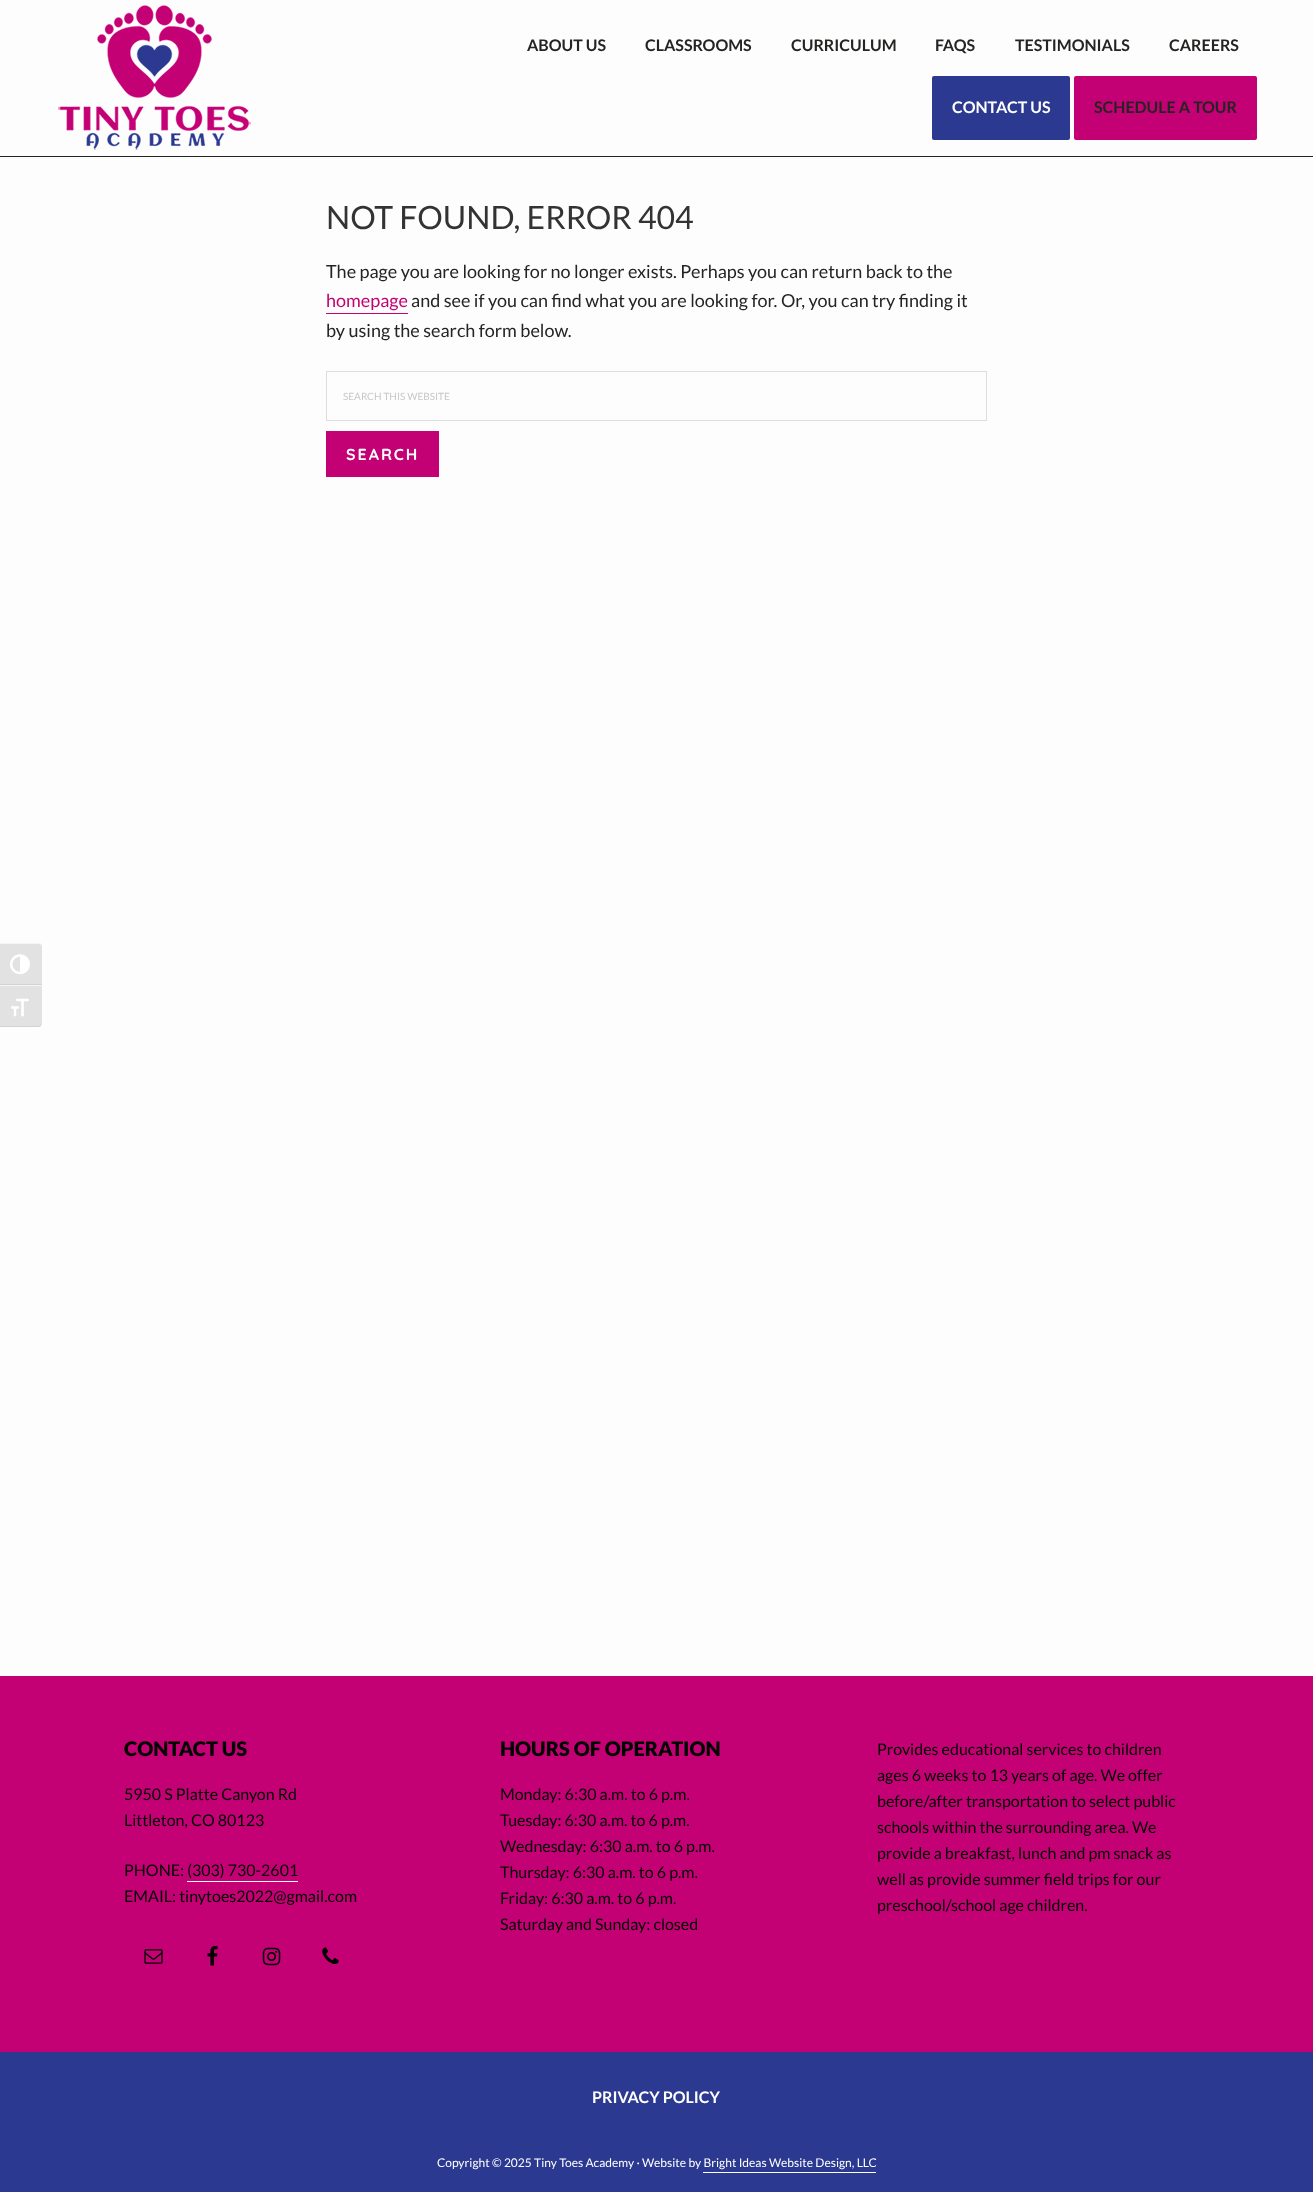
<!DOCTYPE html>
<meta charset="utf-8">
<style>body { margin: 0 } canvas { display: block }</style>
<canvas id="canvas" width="1313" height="2192"></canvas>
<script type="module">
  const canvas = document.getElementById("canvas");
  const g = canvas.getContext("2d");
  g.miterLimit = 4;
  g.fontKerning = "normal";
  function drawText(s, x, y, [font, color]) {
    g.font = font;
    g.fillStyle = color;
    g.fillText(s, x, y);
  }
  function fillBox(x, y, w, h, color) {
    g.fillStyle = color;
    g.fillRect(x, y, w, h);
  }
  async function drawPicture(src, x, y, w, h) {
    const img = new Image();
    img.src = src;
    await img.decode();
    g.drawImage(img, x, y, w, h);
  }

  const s1 = ["bold 16px Lato", "#252422"];
  const s2 = ["bold 16px Lato", "#FFFFFF"];
  const s3 = ["32px Lato", "#333333"];
  const s4 = ["18px Lato", "#252422"];
  const s5 = ["18px Lato", "#C40075"];
  const s6 = ["10px Lato", "#C8C8C8"];
  const s7 = ["300 16px Quicksand", "#FFFFFF"];
  const s8 = ["900 20px Lato", "#000000"];
  const s9 = ["16px Lato", "#000000"];
  const s10 = ["12px Lato", "#FFFFFF"];

  fillBox(0, 0, 1313, 2192, "#FDFDFD");
  g.fillStyle = "#E2E2E2";
  g.beginPath();
  g.roundRect(0, 943, 42, 42, [0, 4, 0, 0]);
  g.fill();
  g.fillStyle = "#F5F5F5";
  g.beginPath();
  g.moveTo(0, 943);
  g.lineTo(0, 944);
  g.lineTo(38, 944);
  g.bezierCurveTo(40, 944, 42, 945, 42, 947);
  g.bezierCurveTo(42, 945, 40, 943, 38, 943);
  g.closePath();
  g.fill();
  fillBox(0, 984, 42, 1, "#D2D2D2");
  await drawPicture("pic1.png", 10, 954, 20, 21);
  g.fillStyle = "#E2E2E2";
  g.beginPath();
  g.roundRect(0, 985, 42, 42, [0, 0, 4, 0]);
  g.fill();
  fillBox(0, 985, 42, 1, "#F5F5F5");
  g.fillStyle = "#D2D2D2";
  g.beginPath();
  g.moveTo(0, 1026);
  g.lineTo(0, 1027);
  g.lineTo(38, 1027);
  g.bezierCurveTo(40, 1027, 42, 1025, 42, 1023);
  g.bezierCurveTo(42, 1025, 40, 1026, 38, 1026);
  g.closePath();
  g.fill();
  await drawPicture("pic2.png", 11, 998, 18, 19);
  fillBox(0, 156, 1313, 1, "#252422");
  await drawPicture("pic3.png", 58, 5, 193, 145);
  drawText("ABOUT US", 527, 51, s1);
  drawText("CLASSROOMS", 645, 51, s1);
  drawText("CURRICULUM", 791, 51, s1);
  drawText("FAQS", 935, 51, s1);
  drawText("TESTIMONIALS", 1015, 51, s1);
  drawText("CAREERS", 1169, 51, s1);
  g.fillStyle = "#2B3990";
  g.beginPath();
  g.roundRect(933, 77, 136, 62, 1);
  g.fill();
  g.strokeStyle = "#2B3990";
  g.lineWidth = 2;
  g.stroke();
  drawText("CONTACT US", 952, 113, s2);
  g.fillStyle = "#C40075";
  g.beginPath();
  g.roundRect(1075, 77, 181, 62, 1);
  g.fill();
  g.strokeStyle = "#C40075";
  g.stroke();
  drawText("SCHEDULE A TOUR", 1094, 113, s1);
  drawText("NOT FOUND, ERROR 404", 326, 229, s3);
  drawText("The page you are looking for no longer exists. Perhaps you can return back to the", 326, 278, s4);
  drawText("homepage", 326, 307, s5);
  fillBox(326, 313, 82, 1, "#C40075");
  drawText("and see if you can find what you are looking for. Or, you can try finding it", 411, 307, s4);
  drawText("by using the search form below.", 326, 337, s4);
  g.strokeStyle = "#DDDDDD";
  g.lineWidth = 1;
  g.strokeRect(326.5, 371.5, 660, 49);
  drawText("SEARCH THIS WEBSITE", 343, 400, s6);
  fillBox(326, 431, 113, 46, "#C40075");
  g.letterSpacing = "2px";
  drawText("SEARCH", 346, 460, s7);
  fillBox(0, 1676, 1313, 376, "#C40075");
  g.letterSpacing = "0px";
  drawText("CONTACT US", 124, 1756, s8);
  drawText("5950 S Platte Canyon Rd", 124, 1800, s9);
  drawText("Littleton, CO 80123", 124, 1826, s9);
  drawText("PHONE: (303) 730-2601", 124, 1876, s9);
  fillBox(187, 1881, 111, 1, "#FFFFFF");
  drawText("EMAIL: tinytoes2022@gmail.com", 124, 1902, s9);
  await drawPicture("pic4.png", 144, 1949, 19, 15);
  await drawPicture("pic5.png", 207, 1946, 11, 20);
  await drawPicture("pic6.png", 262, 1947, 19, 19);
  await drawPicture("pic7.png", 322, 1947, 17, 17);
  drawText("HOURS OF OPERATION", 500, 1756, s8);
  drawText("Monday: 6:30 a.m. to 6 p.m.", 500, 1800, s9);
  drawText("Tuesday: 6:30 a.m. to 6 p.m.", 500, 1826, s9);
  drawText("Wednesday: 6:30 a.m. to 6 p.m.", 500, 1852, s9);
  drawText("Thursday: 6:30 a.m. to 6 p.m.", 500, 1878, s9);
  drawText("Friday: 6:30 a.m. to 6 p.m.", 500, 1904, s9);
  drawText("Saturday and Sunday: closed", 500, 1930, s9);
  drawText("Provides educational services to children", 877, 1755, s9);
  drawText("ages 6 weeks to 13 years of age. We offer", 877, 1781, s9);
  drawText("before/after transportation to select public", 877, 1807, s9);
  drawText("schools within the surrounding area. We", 877, 1833, s9);
  drawText("provide a breakfast, lunch and pm snack as", 877, 1859, s9);
  drawText("well as provide summer field trips for our", 877, 1885, s9);
  drawText("preschool/school age children.", 877, 1911, s9);
  fillBox(0, 2052, 1313, 140, "#2B3990");
  drawText("PRIVACY POLICY", 592, 2103, s2);
  drawText("Copyright © 2025 Tiny Toes Academy · Website by Bright Ideas Website Design, LLC", 437, 2167, s10);
  fillBox(703, 2172, 173, 1, "#FFFFFF");
</script>
